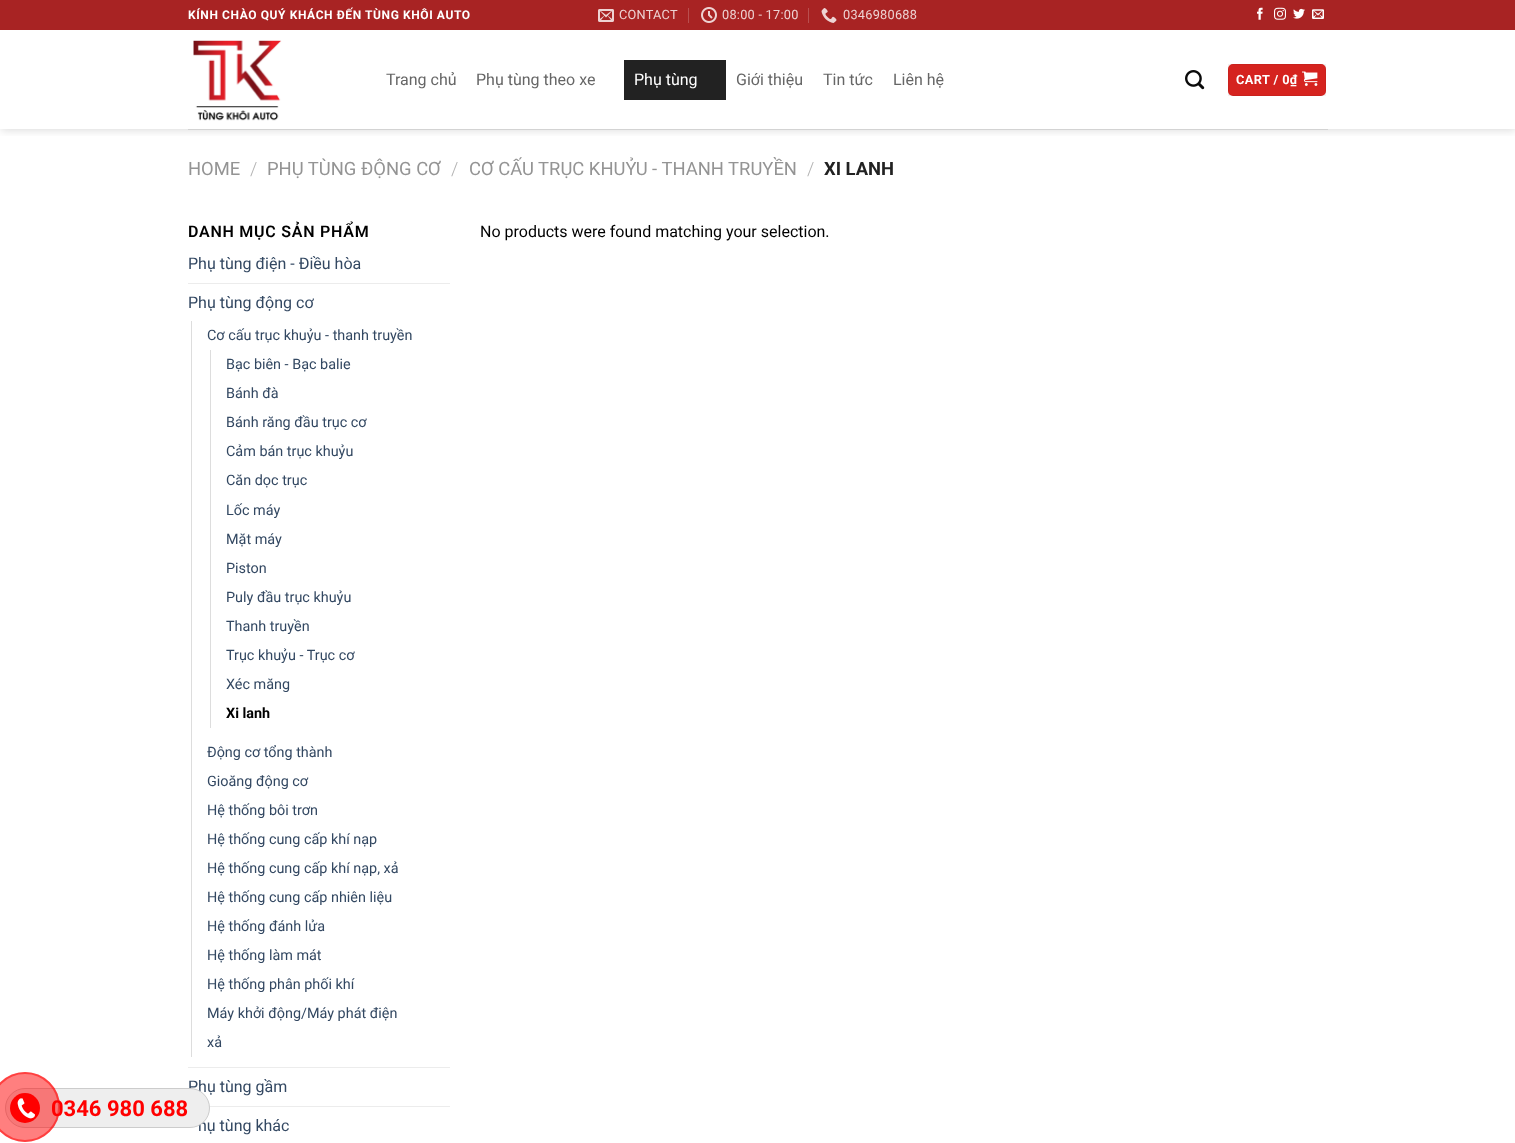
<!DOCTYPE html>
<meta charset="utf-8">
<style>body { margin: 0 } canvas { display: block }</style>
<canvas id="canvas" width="1515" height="1143"></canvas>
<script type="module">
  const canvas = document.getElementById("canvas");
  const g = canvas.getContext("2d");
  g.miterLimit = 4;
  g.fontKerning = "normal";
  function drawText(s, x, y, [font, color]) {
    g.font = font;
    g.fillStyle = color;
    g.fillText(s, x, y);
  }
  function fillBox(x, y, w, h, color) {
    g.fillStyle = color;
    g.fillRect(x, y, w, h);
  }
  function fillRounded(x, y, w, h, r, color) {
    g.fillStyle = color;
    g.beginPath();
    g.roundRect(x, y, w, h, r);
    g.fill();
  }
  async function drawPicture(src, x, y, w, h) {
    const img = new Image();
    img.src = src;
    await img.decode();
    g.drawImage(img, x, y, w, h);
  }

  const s1 = ["16px Roboto", "#334862"];
  const s2 = ["bold 22px Roboto", "#FF0000"];
  const s3 = ["bold 12px Roboto", "#FFFFFF"];
  const s4 = ["12.75px Roboto", "#EED3D3"];
  const s5 = ["16px Roboto", "#666666"];
  const s6 = ["16px Roboto", "#FFFFFF"];
  const s7 = ["bold 12.75px Roboto", "#FFFFFF"];
  const s8 = ["18.4px Roboto", "#949494"];
  const s9 = ["300 18.4px Roboto", "#B2B2B2"];
  const s10 = ["bold 18.4px Roboto", "#222222"];
  const s11 = ["600 16px Roboto", "#000000"];
  const s12 = ["14.4px Roboto", "#334862"];
  const s13 = ["bold 14.4px Roboto", "#000000"];
  const s14 = ["16px Roboto", "#000000"];

  fillBox(0, 0, 1515, 1143, "#FFFFFF");
  drawText("Phụ tùng gầm", 188, 1092, s1);
  fillBox(209, 1106, 241, 1, "#ECECEC");
  drawText("hụ tùng khác", 198, 1131, s1);
  g.fillStyle = "#EEEEEE";
  g.beginPath();
  g.roundRect(5.5, 1088.5, 204, 39, 19.5);
  g.fill();
  g.strokeStyle = "#CCCCCC";
  g.stroke();
  drawText("0346 980 688", 51, 1116, s2);
  g.fillStyle = "rgba(255, 0, 0, 0.5)";
  g.beginPath();
  g.arc(25, 1107, 35, 0, Math.PI * 2);
  g.fill();
  g.beginPath();
  g.arc(25, 1107, 34, 0, Math.PI * 2);
  g.strokeStyle = "rgba(255, 0, 0, 0.5)";
  g.lineWidth = 2;
  g.stroke();
  g.fillStyle = "#FF0000";
  g.beginPath();
  g.arc(25, 1108, 15, 0, Math.PI * 2);
  g.fill();
  await drawPicture("pic1.png", 17, 1098, 18, 21);
  g.save();
  g.beginPath();
  g.rect(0, 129, 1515, 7);
  g.clip();
  g.fillStyle = "rgba(0, 0, 0, 0.15)";
  g.filter = "blur(5px)";
  g.beginPath();
  g.rect(1, 1, 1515, 129);
  g.fill();
  g.filter = "none";
  g.restore();
  fillBox(0, 0, 1515, 30, "#A82323");
  g.letterSpacing = "0.6px";
  drawText("KÍNH CHÀO QUÝ KHÁCH ĐẾN TÙNG KHÔI AUTO", 188, 19, s3);
  await drawPicture("pic2.png", 598, 9, 16, 13);
  g.letterSpacing = "0.25px";
  drawText("CONTACT", 619, 19, s4);
  fillBox(688, 8, 1, 15, "#B94F4F");
  await drawPicture("pic3.png", 701, 7, 16, 16);
  drawText("08:00 - 17:00", 722, 19, s4);
  fillBox(808, 8, 1, 15, "#B94F4F");
  await drawPicture("pic4.png", 821, 8, 16, 15);
  drawText("0346980688", 843, 19, s4);
  await drawPicture("pic5.png", 1257, 7, 6, 13);
  await drawPicture("pic6.png", 1274, 7, 12, 13);
  await drawPicture("pic7.png", 1293, 8, 12, 11);
  await drawPicture("pic8.png", 1312, 9, 12, 10);
  await drawPicture("pic9.png", 193, 40, 89, 81);
  g.letterSpacing = "0px";
  drawText("Trang chủ", 386, 85, s5);
  drawText("Phụ tùng theo xe", 476, 85, s5);
  fillBox(624, 60, 102, 40, "#222222");
  drawText("Phụ tùng", 634, 85, s6);
  drawText("Giới thiệu", 736, 85, s5);
  drawText("Tin tức", 823, 85, s5);
  drawText("Liên hệ", 893, 85, s5);
  await drawPicture("pic10.png", 1185, 70, 20, 20);
  fillRounded(1228, 64, 98, 32, 5, "#D5231F");
  g.strokeStyle = "rgba(0, 0, 0, 0.05)";
  g.lineWidth = 1;
  g.strokeRect(1228.5, 64.5, 97, 31);
  g.letterSpacing = "0.4px";
  drawText("CART / 0₫", 1236, 84, s7);
  await drawPicture("pic11.png", 1302, 71, 16, 15);
  fillBox(188, 129, 1140, 1, "#D3D3D3");
  g.letterSpacing = "0px";
  drawText("HOME", 188, 175, s8);
  drawText("/", 250, 175, s9);
  drawText("PHỤ TÙNG ĐỘNG CƠ", 267, 175, s8);
  drawText("/", 451, 175, s9);
  drawText("CƠ CẤU TRỤC KHUỶU - THANH TRUYỀN", 469, 175, s8);
  drawText("/", 807, 175, s9);
  drawText("XI LANH", 824, 175, s10);
  g.letterSpacing = "0.75px";
  drawText("DANH MỤC SẢN PHẨM", 188, 237, s11);
  g.letterSpacing = "0px";
  drawText("Phụ tùng điện - Điều hòa", 188, 269, s1);
  fillBox(188, 283, 262, 1, "#ECECEC");
  drawText("Phụ tùng động cơ", 188, 308, s1);
  fillBox(191, 321, 1, 736, "#DDDDDD");
  drawText("Cơ cấu trục khuỷu - thanh truyền", 207, 340, s12);
  fillBox(210, 350, 1, 378, "#DDDDDD");
  drawText("Bạc biên - Bạc balie", 226, 369, s12);
  drawText("Bánh đà", 226, 398, s12);
  drawText("Bánh răng đầu trục cơ", 226, 427, s12);
  drawText("Cảm bán trục khuỷu", 226, 456, s12);
  drawText("Căn dọc trục", 226, 485, s12);
  drawText("Lốc máy", 226, 515, s12);
  drawText("Mặt máy", 226, 544, s12);
  drawText("Piston", 226, 573, s12);
  drawText("Puly đầu trục khuỷu", 226, 602, s12);
  drawText("Thanh truyền", 226, 631, s12);
  drawText("Trục khuỷu - Trục cơ", 226, 660, s12);
  drawText("Xéc măng", 226, 689, s12);
  drawText("Xi lanh", 226, 718, s13);
  drawText("Động cơ tổng thành", 207, 757, s12);
  drawText("Gioăng động cơ", 207, 786, s12);
  drawText("Hệ thống bôi trơn", 207, 815, s12);
  drawText("Hệ thống cung cấp khí nạp", 207, 844, s12);
  drawText("Hệ thống cung cấp khí nạp, xả", 207, 873, s12);
  drawText("Hệ thống cung cấp nhiên liệu", 207, 902, s12);
  drawText("Hệ thống đánh lửa", 207, 931, s12);
  drawText("Hệ thống làm mát", 207, 960, s12);
  drawText("Hệ thống phân phối khí", 207, 989, s12);
  drawText("Máy khởi động/Máy phát điện", 207, 1018, s12);
  drawText("xả", 207, 1047, s12);
  fillBox(188, 1067, 262, 1, "#ECECEC");
  drawText("No products were found matching your selection.", 480, 237, s14);
</script>
